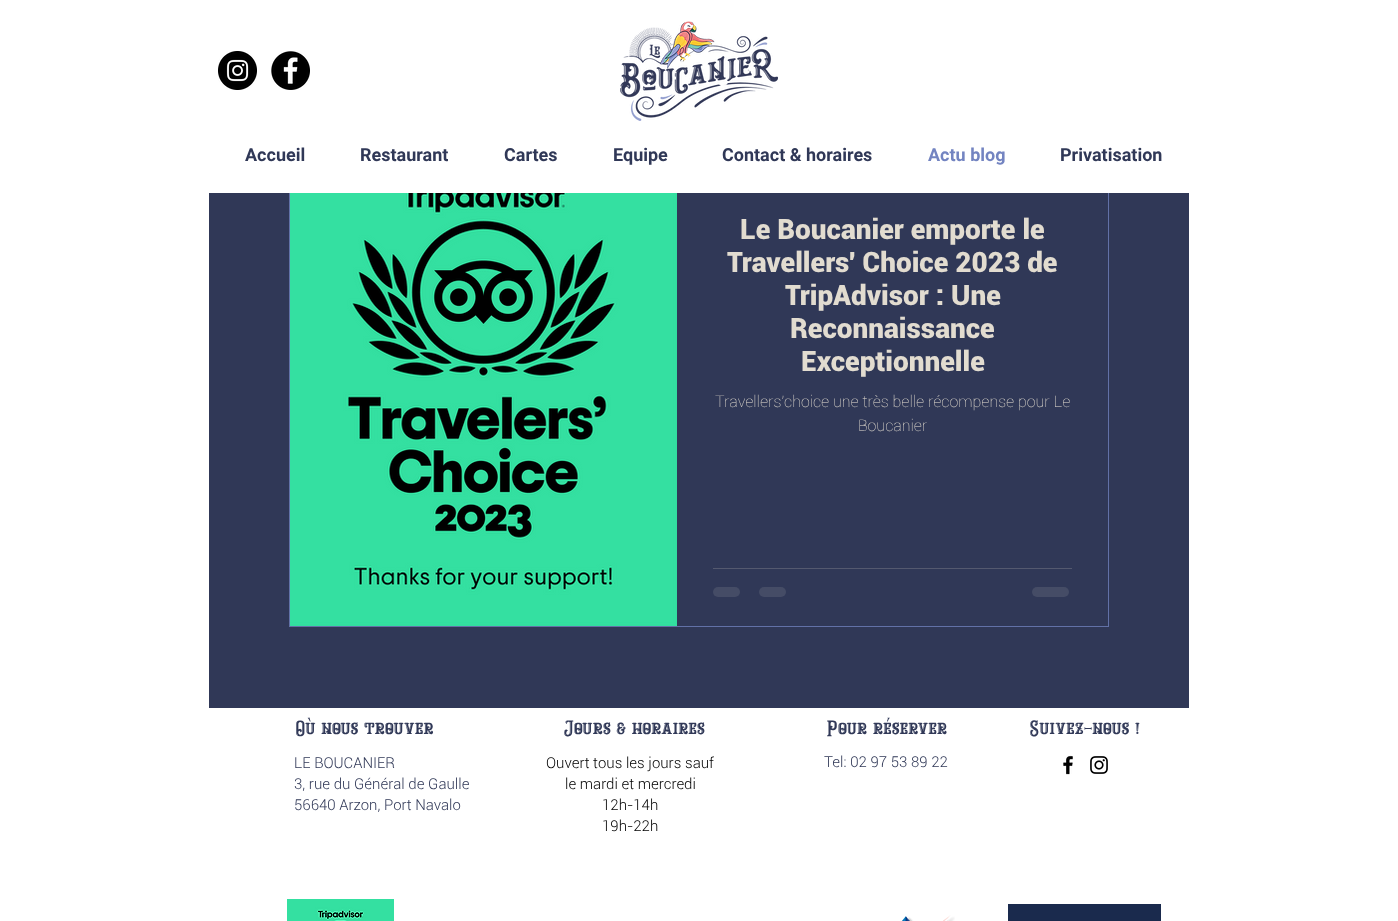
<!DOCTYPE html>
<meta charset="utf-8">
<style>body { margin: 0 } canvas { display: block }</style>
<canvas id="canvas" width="1398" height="921"></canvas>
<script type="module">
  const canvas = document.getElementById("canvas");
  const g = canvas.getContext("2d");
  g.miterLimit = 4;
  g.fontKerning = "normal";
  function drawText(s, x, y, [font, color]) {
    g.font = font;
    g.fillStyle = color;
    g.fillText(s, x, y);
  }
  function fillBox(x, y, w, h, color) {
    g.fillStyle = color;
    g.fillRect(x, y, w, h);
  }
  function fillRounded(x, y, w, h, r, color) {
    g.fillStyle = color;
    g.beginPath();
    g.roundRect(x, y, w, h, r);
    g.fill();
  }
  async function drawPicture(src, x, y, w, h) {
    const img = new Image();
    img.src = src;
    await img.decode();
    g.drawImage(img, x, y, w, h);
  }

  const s1 = ["bold 18px Roboto", "#303857"];
  const s2 = ["bold 18px Roboto", "#7384C1"];
  const s3 = ["900 28px Roboto", "#E2DCD0"];
  const s4 = ["100 16px Roboto", "#E2DCD0"];
  const s5 = ["16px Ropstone", "#303857"];
  const s6 = ["300 15px Roboto", "#303857"];
  const s7 = ["300 15px Roboto", "#000000"];

  fillBox(0, 0, 1398, 921, "#FFFFFF");
  fillBox(209, 193, 980, 515, "#303857");
  g.strokeStyle = "#6271A7";
  g.strokeRect(289.5, 141.5, 819, 485);
  fillBox(289, 141, 820, 52, "#FFFFFF");
  await drawPicture("pic1.png", 218, 51, 39, 39);
  await drawPicture("pic2.png", 271, 51, 39, 39);
  await drawPicture("pic3.png", 620, 21, 158, 100);
  drawText("Accueil", 245, 161, s1);
  drawText("Restaurant", 360, 161, s1);
  drawText("Cartes", 504, 161, s1);
  drawText("Equipe", 613, 161, s1);
  drawText("Contact & horaires", 722, 161, s1);
  drawText("Actu blog", 928, 161, s2);
  drawText("Privatisation", 1060, 161, s1);
  await drawPicture("pic5.png", 675, 624, 1, 1);
  await drawPicture("pic4.png", 290, 193, 387, 433);
  drawText("Le Boucanier emporte le", 740, 239, s3);
  drawText("Travellers' Choice 2023 de", 727, 272, s3);
  drawText("TripAdvisor : Une", 785, 305, s3);
  drawText("Reconnaissance", 790, 338, s3);
  drawText("Exceptionnelle", 801, 371, s3);
  drawText("Travellers'choice une très belle récompense pour Le", 715, 407, s4);
  drawText("Boucanier", 858, 431, s4);
  fillBox(713, 568, 359, 1, "#54596F");
  fillRounded(713, 587, 27, 10, 5, "#454C66");
  fillRounded(759, 587, 27, 10, 5, "#454C66");
  fillRounded(1032, 587, 37, 10, 5, "#454C66");
  drawText("Où nous trouver", 296, 734, s5);
  drawText("Jours & horaires", 564, 734, s5);
  drawText("Pour réserver", 827, 734, s5);
  drawText("Suivez-nous !", 1030, 734, s5);
  drawText("LE BOUCANIER", 294, 768, s6);
  drawText("3, rue du Général de Gaulle", 294, 789, s6);
  drawText("56640 Arzon, Port Navalo", 294, 810, s6);
  drawText("Ouvert tous les jours sauf", 546, 768, s7);
  drawText("le mardi et mercredi", 565, 789, s7);
  drawText("12h-14h", 602, 810, s7);
  drawText("19h-22h", 602, 831, s7);
  drawText("Tel: 02 97 53 89 22", 824, 767, s6);
  await drawPicture("pic6.png", 1063, 755, 10, 20);
  await drawPicture("pic7.png", 1090, 756, 18, 18);
  await drawPicture("pic8.png", 287, 899, 107, 22);
  await drawPicture("pic9.png", 902, 915, 53, 6);
  fillBox(1008, 904, 153, 17, "#1A2A4D");
</script>
